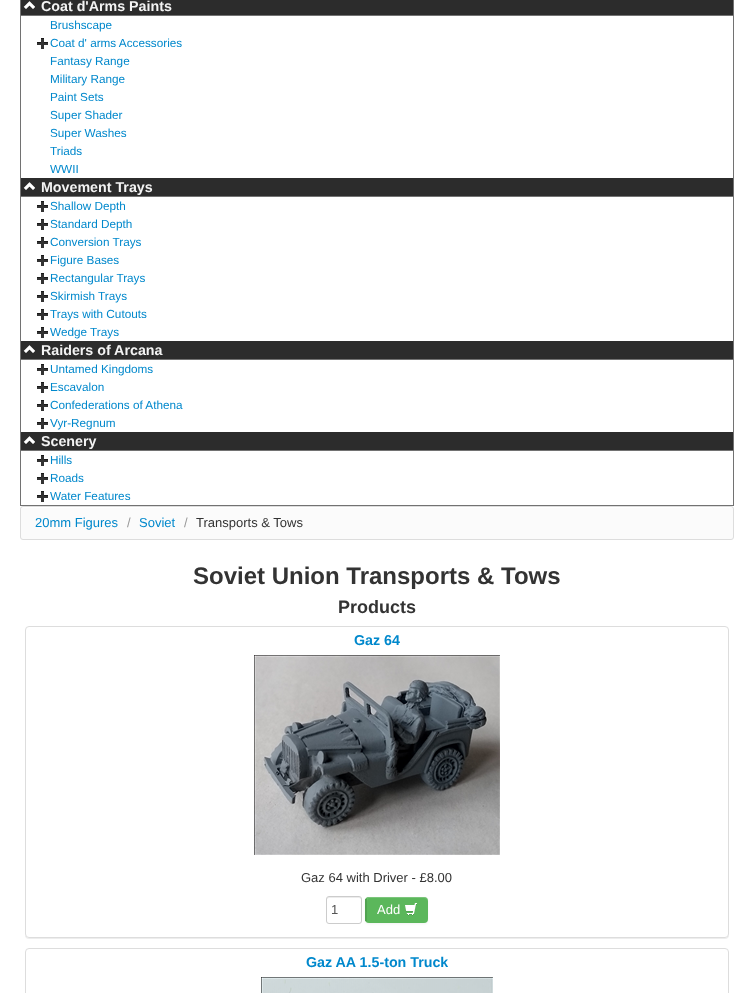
<!DOCTYPE html>
<meta charset="utf-8">
<style>body { margin: 0 } canvas { display: block }</style>
<canvas id="canvas" width="754" height="993"></canvas>
<script type="module">
  const canvas = document.getElementById("canvas");
  const g = canvas.getContext("2d");
  g.miterLimit = 4;
  g.fontKerning = "normal";
  function drawText(s, x, y, [font, color]) {
    g.font = font;
    g.fillStyle = color;
    g.fillText(s, x, y);
  }
  function fillBox(x, y, w, h, color) {
    g.fillStyle = color;
    g.fillRect(x, y, w, h);
  }
  function fillRounded(x, y, w, h, r, color) {
    g.fillStyle = color;
    g.beginPath();
    g.roundRect(x, y, w, h, r);
    g.fill();
  }
  async function drawPicture(src, x, y, w, h) {
    const img = new Image();
    img.src = src;
    await img.decode();
    g.drawImage(img, x, y, w, h);
  }

  const s1 = ["bold 14.25px Liberation Sans", "#F3F3F3"];
  const s2 = ["11.75px Liberation Sans", "#0088CC"];
  const s3 = ["13px Liberation Sans", "#0088CC"];
  const s4 = ["13px Liberation Sans", "#999999"];
  const s5 = ["13px Liberation Sans", "#333333"];
  const s6 = ["bold 24px Liberation Sans", "#333333"];
  const s7 = ["bold 18px Liberation Sans", "#333333"];
  const s8 = ["bold 14.25px Liberation Sans", "#0088CC"];
  const s9 = ["13px Liberation Sans", "#555555"];
  const s10 = ["13px Liberation Sans", "#FFFFFF"];

  fillBox(0, 0, 754, 993, "#FFFFFF");
  fillBox(733, 0, 1, 506, "#727272");
  fillBox(20, 505, 714, 1, "#727272");
  fillBox(20, 0, 1, 506, "#727272");
  fillBox(21, 0, 712, 15, "#2C2C2C");
  fillBox(21, 15, 712, 1, "#727272");
  await drawPicture("pic1.png", 23, 1, 12, 8);
  drawText("Coat d'Arms Paints", 41, 11, s1);
  drawText("Brushscape", 50, 29, s2);
  await drawPicture("pic2.png", 37, 38, 11, 11);
  drawText("Coat d' arms Accessories", 50, 47, s2);
  drawText("Fantasy Range", 50, 65, s2);
  drawText("Military Range", 50, 83, s2);
  drawText("Paint Sets", 50, 101, s2);
  drawText("Super Shader", 50, 119, s2);
  drawText("Super Washes", 50, 137, s2);
  drawText("Triads", 50, 155, s2);
  drawText("WWII", 50, 173, s2);
  fillBox(21, 178, 712, 18, "#2C2C2C");
  fillBox(21, 196, 712, 1, "#727272");
  await drawPicture("pic1.png", 23, 182, 12, 8);
  drawText("Movement Trays", 41, 192, s1);
  await drawPicture("pic2.png", 37, 201, 11, 11);
  drawText("Shallow Depth", 50, 210, s2);
  await drawPicture("pic2.png", 37, 219, 11, 11);
  drawText("Standard Depth", 50, 228, s2);
  await drawPicture("pic2.png", 37, 237, 11, 11);
  drawText("Conversion Trays", 50, 246, s2);
  await drawPicture("pic2.png", 37, 255, 11, 11);
  drawText("Figure Bases", 50, 264, s2);
  await drawPicture("pic2.png", 37, 273, 11, 11);
  drawText("Rectangular Trays", 50, 282, s2);
  await drawPicture("pic2.png", 37, 291, 11, 11);
  drawText("Skirmish Trays", 50, 300, s2);
  await drawPicture("pic2.png", 37, 309, 11, 11);
  drawText("Trays with Cutouts", 50, 318, s2);
  await drawPicture("pic2.png", 37, 327, 11, 11);
  drawText("Wedge Trays", 50, 336, s2);
  fillBox(21, 341, 712, 18, "#2C2C2C");
  fillBox(21, 359, 712, 1, "#727272");
  await drawPicture("pic1.png", 23, 345, 12, 8);
  drawText("Raiders of Arcana", 41, 355, s1);
  await drawPicture("pic2.png", 37, 364, 11, 11);
  drawText("Untamed Kingdoms", 50, 373, s2);
  await drawPicture("pic2.png", 37, 382, 11, 11);
  drawText("Escavalon", 50, 391, s2);
  await drawPicture("pic2.png", 37, 400, 11, 11);
  drawText("Confederations of Athena", 50, 409, s2);
  await drawPicture("pic2.png", 37, 418, 11, 11);
  drawText("Vyr-Regnum", 50, 427, s2);
  fillBox(21, 432, 712, 18, "#2C2C2C");
  fillBox(21, 450, 712, 1, "#727272");
  await drawPicture("pic1.png", 23, 436, 12, 8);
  drawText("Scenery", 41, 446, s1);
  await drawPicture("pic2.png", 37, 455, 11, 11);
  drawText("Hills", 50, 464, s2);
  await drawPicture("pic2.png", 37, 473, 11, 11);
  drawText("Roads", 50, 482, s2);
  await drawPicture("pic2.png", 37, 491, 11, 11);
  drawText("Water Features", 50, 500, s2);
  fillRounded(20, 506, 714, 34, 3, "#FBFBFB");
  g.fillStyle = "#FFFFFF";
  g.beginPath();
  g.moveTo(23, 508);
  g.lineTo(731, 508);
  g.bezierCurveTo(732, 508, 733, 509, 733, 510);
  g.bezierCurveTo(733, 509, 733, 507, 731, 507);
  g.lineTo(23, 507);
  g.bezierCurveTo(21, 507, 21, 509, 21, 510);
  g.bezierCurveTo(21, 509, 22, 508, 23, 508);
  g.closePath();
  g.fill();
  g.beginPath();
  g.roundRect(20.5, 506.5, 713, 33, 2.5);
  g.strokeStyle = "#DDDDDD";
  g.stroke();
  drawText("20mm Figures", 35, 527, s3);
  drawText("/", 127, 527, s4);
  drawText("Soviet", 139, 527, s3);
  drawText("/", 184, 527, s4);
  drawText("Transports & Tows", 196, 527, s5);
  drawText("Soviet Union Transports & Tows", 193, 584, s6);
  drawText("Products", 338, 613, s7);
  g.save();
  g.beginPath();
  g.moveTo(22, 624);
  g.lineTo(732, 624);
  g.lineTo(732, 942);
  g.lineTo(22, 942);
  g.closePath();
  g.moveTo(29, 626);
  g.lineTo(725, 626);
  g.bezierCurveTo(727, 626, 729, 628, 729, 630);
  g.lineTo(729, 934);
  g.bezierCurveTo(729, 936, 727, 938, 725, 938);
  g.lineTo(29, 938);
  g.bezierCurveTo(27, 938, 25, 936, 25, 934);
  g.lineTo(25, 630);
  g.bezierCurveTo(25, 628, 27, 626, 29, 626);
  g.closePath();
  g.clip("evenodd");
  g.fillStyle = "rgba(0, 0, 0, 0.07)";
  g.filter = "blur(0.5px)";
  g.beginPath();
  g.roundRect(25, 627, 704, 312, 4);
  g.fill();
  g.filter = "none";
  g.restore();
  g.beginPath();
  g.roundRect(25.5, 626.5, 703, 311, 3.5);
  g.stroke();
  drawText("Gaz 64", 354, 645, s8);
  await drawPicture("pic3.png", 254, 655, 246, 200);
  drawText("Gaz 64 with Driver - £8.00", 301, 882, s5);
  g.fillStyle = "#ECECEC";
  g.beginPath();
  g.moveTo(329, 898);
  g.lineTo(359, 898);
  g.bezierCurveTo(360, 898, 361, 899, 361, 900);
  g.bezierCurveTo(361, 895.5, 358, 897, 354, 897);
  g.lineTo(334, 897);
  g.bezierCurveTo(330, 897, 327, 895.5, 327, 900);
  g.bezierCurveTo(327, 899, 328, 898, 329, 898);
  g.closePath();
  g.fill();
  g.beginPath();
  g.roundRect(326.5, 896.5, 35, 27, 2.5);
  g.strokeStyle = "#CCCCCC";
  g.stroke();
  drawText("1", 331, 914, s9);
  g.fillStyle = "rgba(0, 0, 0, 0.05)";
  g.filter = "blur(1px)";
  g.beginPath();
  g.roundRect(365, 898, 63, 26, 4);
  g.fill();
  g.filter = "none";
  fillRounded(365, 897, 63, 26, 4, "#5BB75B");
  g.fillStyle = "rgba(255, 255, 255, 0.2)";
  g.beginPath();
  g.moveTo(369, 898);
  g.lineTo(424, 898);
  g.bezierCurveTo(426, 898, 428, 900, 428, 902);
  g.bezierCurveTo(428, 895, 420, 897, 415, 897);
  g.lineTo(378, 897);
  g.bezierCurveTo(370, 897, 367, 895, 367, 902);
  g.bezierCurveTo(367, 900, 368, 898, 369, 898);
  g.closePath();
  g.fill();
  fillBox(365, 899, 2, 22, "#51A351");
  drawText("Add", 377, 914, s10);
  await drawPicture("pic4.png", 405, 903, 12, 13);
  g.beginPath();
  g.roundRect(25.5, 948.5, 703, 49, 3.5);
  g.strokeStyle = "#DDDDDD";
  g.stroke();
  drawText("Gaz AA 1.5-ton Truck", 306, 967, s8);
  await drawPicture("pic5.png", 261, 977, 232, 16);
</script>
